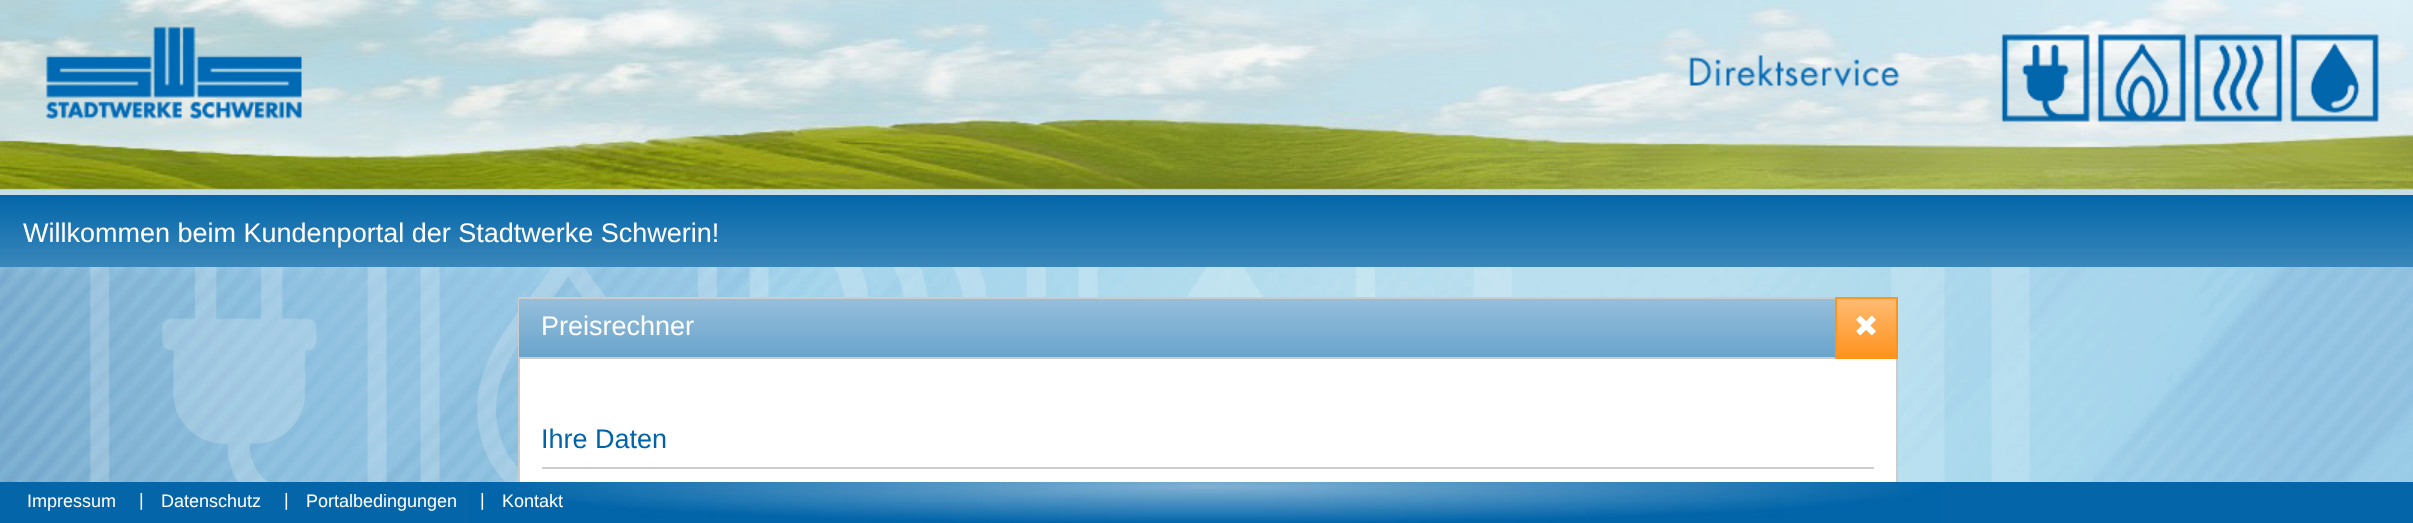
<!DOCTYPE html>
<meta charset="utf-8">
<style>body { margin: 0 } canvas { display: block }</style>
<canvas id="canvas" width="2413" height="523"></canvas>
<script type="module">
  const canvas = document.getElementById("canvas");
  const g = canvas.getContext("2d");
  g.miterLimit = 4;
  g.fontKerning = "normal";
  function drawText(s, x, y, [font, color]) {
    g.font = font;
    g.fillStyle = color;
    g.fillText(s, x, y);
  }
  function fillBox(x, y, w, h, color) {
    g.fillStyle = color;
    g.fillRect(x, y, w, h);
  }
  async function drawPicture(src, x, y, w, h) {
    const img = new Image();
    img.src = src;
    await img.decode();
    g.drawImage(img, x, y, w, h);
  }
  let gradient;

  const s1 = ["27px Liberation Sans", "#FFFFFF"];
  const s2 = ["27px Liberation Sans", "#0164A8"];
  const s3 = ["18px Liberation Sans", "#FFFFFF"];

  fillBox(0, 0, 2413, 523, "#FFFFFF");
  await drawPicture("pic1.png", 0, 267, 2413, 215);
  await drawPicture("pic2.png", 0, 0, 2413, 195);
  await drawPicture("pic3.png", 46, 26, 256, 93);
  await drawPicture("pic4.png", 1688, 55, 212, 33);
  await drawPicture("pic5.png", 2001, 34, 378, 88);
  gradient = g.createLinearGradient(1207, 195, 1207, 267);
  gradient.addColorStop(0, "#0366A9");
  gradient.addColorStop(1, "#3A87BA");
  g.fillStyle = gradient;
  g.fillRect(0, 195, 2413, 72);
  drawText("Willkommen beim Kundenportal der Stadtwerke Schwerin!", 23, 242, s1);
  fillBox(520, 359, 1376, 123, "#FFFFFF");
  g.strokeStyle = "#CCCCCC";
  g.lineWidth = 2;
  g.strokeRect(519, 298, 1378, 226);
  gradient = g.createLinearGradient(1208, 298, 1208, 357);
  gradient.addColorStop(0, "#97BFDC");
  gradient.addColorStop(1, "#69A4CC");
  g.fillStyle = gradient;
  g.fillRect(519, 299, 1316, 58);
  fillBox(519, 357, 1316, 2, "#CCCCCC");
  drawText("Preisrechner", 541, 335, s1);
  fillBox(542, 467, 1332, 2, "#CCCCCC");
  drawText("Ihre Daten", 541, 448, s2);
  gradient = g.createLinearGradient(1866, 299, 1866, 357);
  gradient.addColorStop(0, "#FFBB72");
  gradient.addColorStop(1, "#FF931E");
  g.fillStyle = gradient;
  g.fillRect(1837, 299, 59, 58);
  g.strokeStyle = "#FF931E";
  g.strokeRect(1836, 298, 61, 60);
  await drawPicture("pic6.png", 1856, 315, 20, 21);
  await drawPicture("pic7.png", 0, 482, 2413, 41);
  drawText("Impressum", 27, 507, s3);
  drawText("|", 139, 506, s3);
  drawText("Datenschutz", 161, 507, s3);
  drawText("|", 284, 506, s3);
  drawText("Portalbedingungen", 306, 507, s3);
  drawText("|", 480, 506, s3);
  drawText("Kontakt", 502, 507, s3);
</script>
